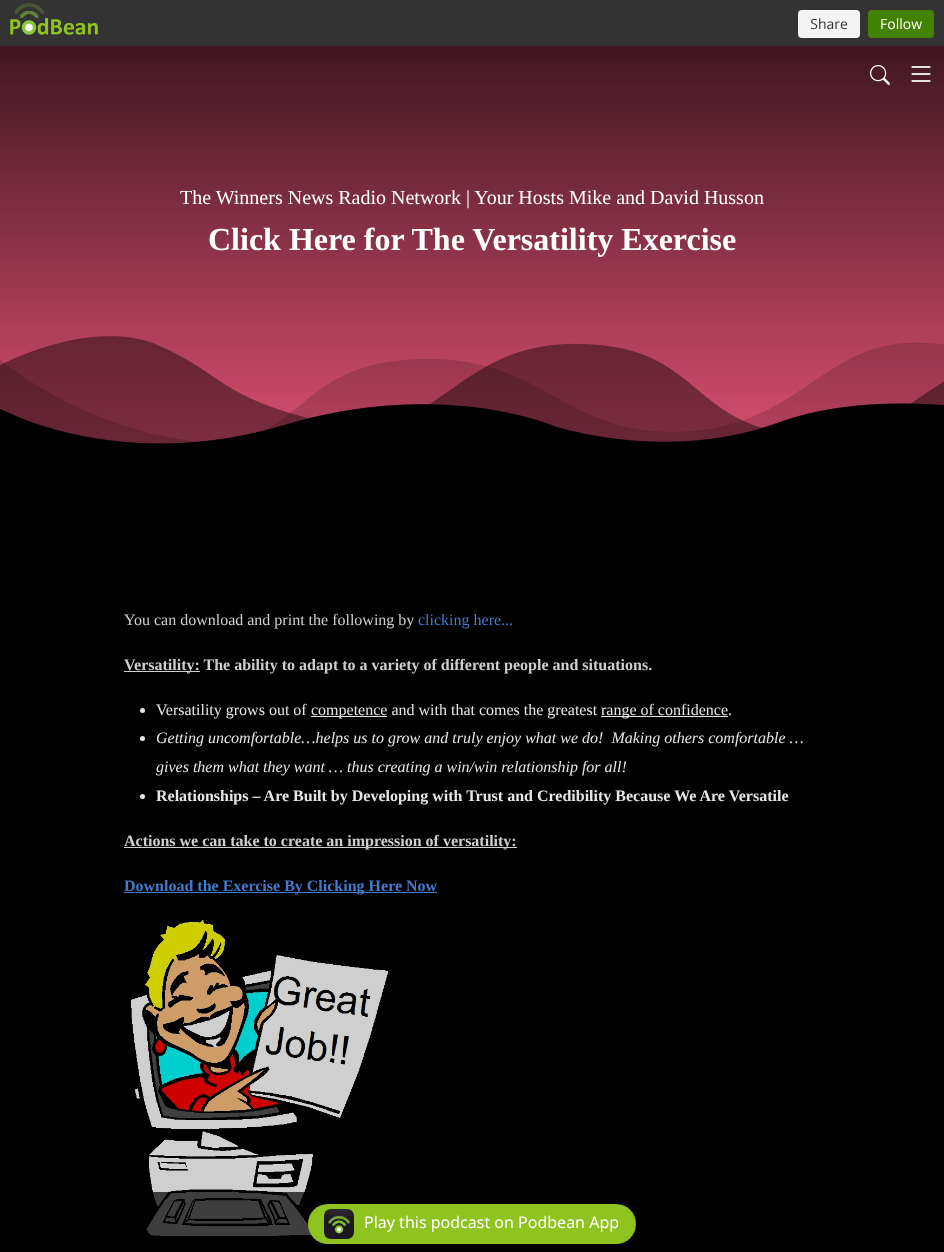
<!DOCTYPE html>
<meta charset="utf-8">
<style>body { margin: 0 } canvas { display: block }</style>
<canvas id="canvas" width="944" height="1252"></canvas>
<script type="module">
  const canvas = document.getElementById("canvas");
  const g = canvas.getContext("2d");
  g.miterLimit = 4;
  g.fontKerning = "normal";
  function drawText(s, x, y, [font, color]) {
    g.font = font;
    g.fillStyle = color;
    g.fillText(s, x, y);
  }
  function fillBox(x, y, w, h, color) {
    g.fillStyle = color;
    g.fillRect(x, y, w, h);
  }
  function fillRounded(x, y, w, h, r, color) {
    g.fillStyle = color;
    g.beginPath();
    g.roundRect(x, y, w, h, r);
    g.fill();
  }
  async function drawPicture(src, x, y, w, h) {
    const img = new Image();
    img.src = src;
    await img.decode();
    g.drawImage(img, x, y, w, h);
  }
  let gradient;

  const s1 = ["20px Liberation Serif", "#FFFFFF"];
  const s2 = ["bold 32px Liberation Serif", "#FFFFFF"];
  const s3 = ["16px Liberation Serif", "#CFCFCF"];
  const s4 = ["16px Liberation Serif", "#427BCF"];
  const s5 = ["bold 16px Liberation Serif", "#CFCFCF"];
  const s6 = ["16px Liberation Serif", "#E6E6E6"];
  const s7 = ["italic 16px Liberation Serif", "#E6E6E6"];
  const s8 = ["bold 16px Liberation Serif", "#E6E6E6"];
  const s9 = ["bold 16px Liberation Serif", "#427BCF"];
  const s10 = ["16px Noto Sans", "#FFFFFF"];

  fillBox(0, 0, 944, 1252, "#000000");
  fillBox(0, 0, 944, 46, "#333333");
  await drawPicture("pic1.png", 10, 3, 924, 35);
  gradient = g.createLinearGradient(472, 546, 472, 46);
  gradient.addColorStop(0, "#FF5C84");
  gradient.addColorStop(1, "#401721");
  g.fillStyle = gradient;
  g.fillRect(0, 46, 944, 398);
  await drawPicture("pic2.png", 870, 65, 20, 20);
  await drawPicture("pic3.png", 911, 66, 20, 16);
  drawText("The Winners News Radio Network | Your Hosts Mike and David Husson", 180, 204, s1);
  drawText("Click Here for The Versatility Exercise", 208, 250, s2);
  await drawPicture("pic4.png", 0, 336, 944, 210);
  drawText("You can download and print the following by", 124, 625, s3);
  drawText("clicking here...", 418, 625, s4);
  fillBox(124, 671, 76, 1, "#CFCFCF");
  drawText("Versatility: The ability to adapt to a variety of different people and situations.", 124, 670, s5);
  g.fillStyle = "#E6E6E6";
  g.beginPath();
  g.arc(142.5, 710.5, 2.5, 0, Math.PI * 2);
  g.fill();
  drawText("Versatility grows out of", 156, 715, s6);
  fillBox(311, 716, 76, 1, "#E6E6E6");
  drawText("competence and with that comes the greatest", 311, 715, s6);
  fillBox(601, 716, 127, 1, "#E6E6E6");
  drawText("range of confidence.", 601, 715, s6);
  g.beginPath();
  g.arc(142.5, 738.5, 2.5, 0, Math.PI * 2);
  g.fill();
  drawText("Getting uncomfortable…helps us to grow and truly enjoy what we do!  Making others comfortable …", 156, 743, s7);
  drawText("gives them what they want … thus creating a win/win relationship for all!", 156, 772, s7);
  g.beginPath();
  g.arc(142.5, 796.5, 2.5, 0, Math.PI * 2);
  g.fill();
  drawText("Relationships – Are Built by Developing with Trust and Credibility Because We Are Versatile", 156, 801, s8);
  fillBox(124, 847, 393, 1, "#CFCFCF");
  drawText("Actions we can take to create an impression of versatility:", 124, 846, s5);
  fillBox(124, 892, 313, 1, "#427BCF");
  drawText("Download the Exercise By Clicking Here Now", 124, 891, s9);
  await drawPicture("pic5.png", 131, 920, 258, 318);
  fillBox(146, 1192, 169, 46, "rgba(0, 0, 0, 0.7)");
  fillRounded(308, 1204, 328, 40, 20, "#8FC31F");
  await drawPicture("pic6.png", 324, 1209, 30, 30);
  drawText("Play this podcast on Podbean App", 364, 1228, s10);
</script>
